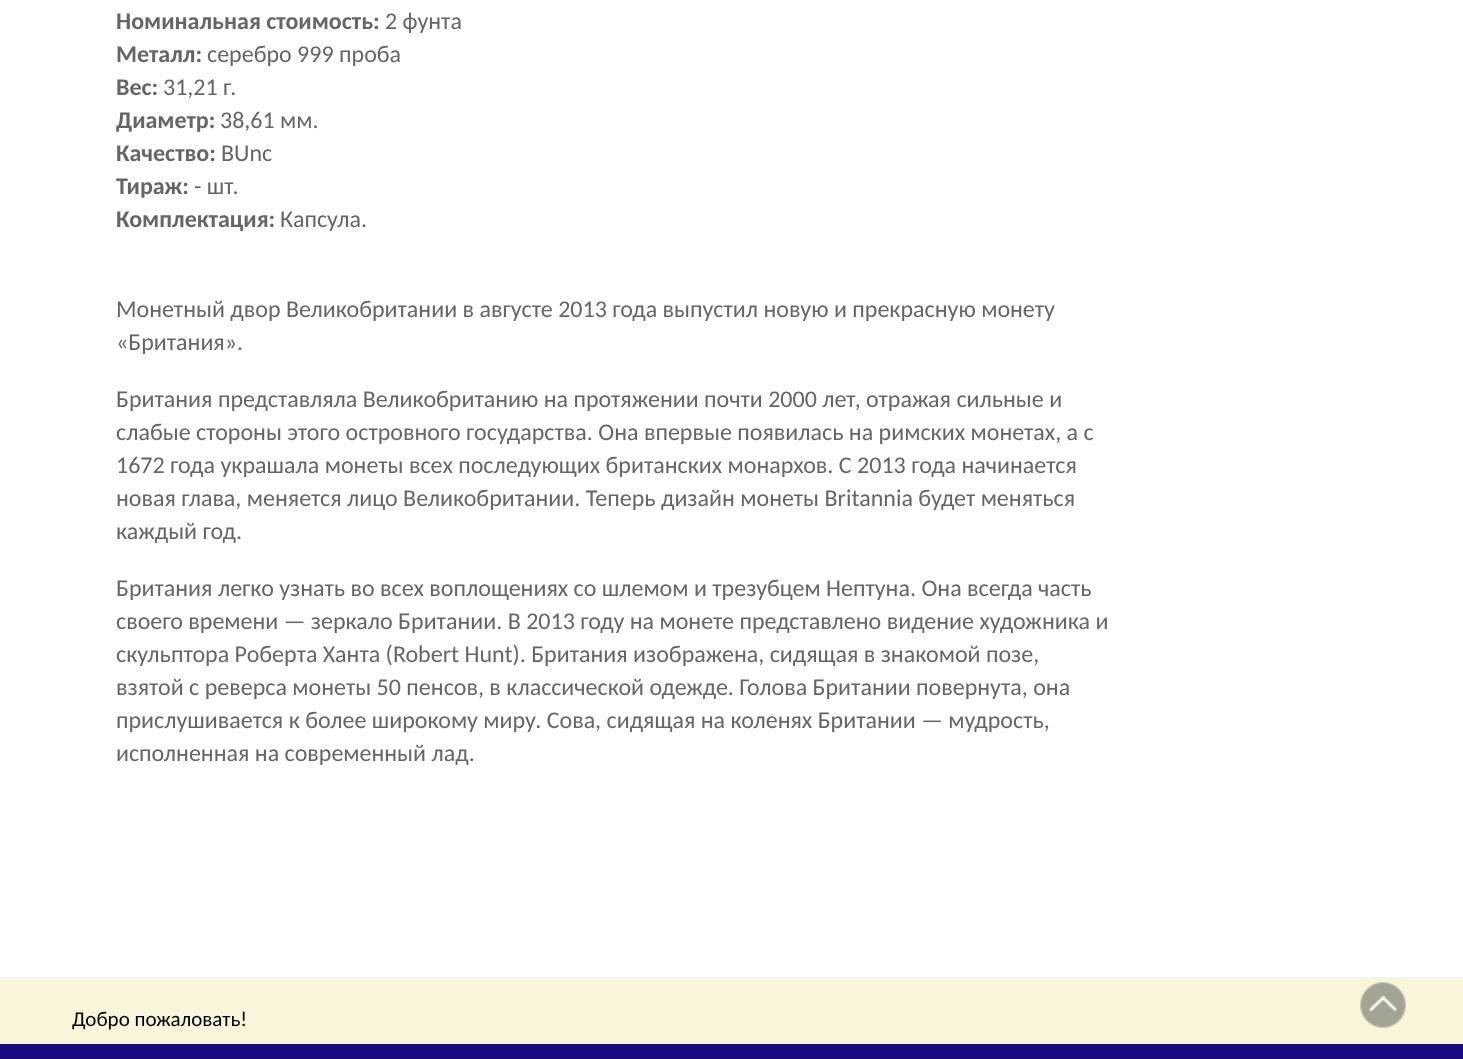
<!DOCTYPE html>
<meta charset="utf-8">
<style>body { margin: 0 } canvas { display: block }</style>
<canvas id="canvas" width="1463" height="1059"></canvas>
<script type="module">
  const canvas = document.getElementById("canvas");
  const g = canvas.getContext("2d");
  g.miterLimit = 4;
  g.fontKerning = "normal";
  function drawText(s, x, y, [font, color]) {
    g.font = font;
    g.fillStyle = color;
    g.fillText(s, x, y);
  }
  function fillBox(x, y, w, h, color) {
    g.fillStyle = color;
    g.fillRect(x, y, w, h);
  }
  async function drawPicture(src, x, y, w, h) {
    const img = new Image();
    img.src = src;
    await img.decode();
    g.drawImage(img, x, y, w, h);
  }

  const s1 = ["bold 24px Carlito", "#666666"];
  const s2 = ["24px Carlito", "#666666"];
  const s3 = ["21px Carlito", "#000000"];

  fillBox(0, 0, 1463, 1059, "#FFFFFF");
  drawText("Номинальная стоимость:", 116, 29, s1);
  drawText("2 фунта", 385, 29, s2);
  drawText("Металл:", 116, 62, s1);
  drawText("серебро 999 проба", 207, 62, s2);
  drawText("Вес:", 116, 95, s1);
  drawText("31,21 г.", 163, 95, s2);
  drawText("Диаметр:", 116, 128, s1);
  drawText("38,61 мм.", 220, 128, s2);
  drawText("Качество:", 116, 161, s1);
  drawText("BUnc", 221, 161, s2);
  drawText("Тираж:", 116, 194, s1);
  drawText("- шт.", 194, 194, s2);
  drawText("Комплектация:", 116, 227, s1);
  drawText("Капсула.", 280, 227, s2);
  drawText("Монетный двор Великобритании в августе 2013 года выпустил новую и прекрасную монету", 116, 317, s2);
  drawText("«Британия».", 116, 350, s2);
  drawText("Британия представляла Великобританию на протяжении почти 2000 лет, отражая сильные и", 116, 407, s2);
  drawText("слабые стороны этого островного государства. Она впервые появилась на римских монетах, а с", 116, 440, s2);
  drawText("1672 года украшала монеты всех последующих британских монархов. С 2013 года начинается", 116, 473, s2);
  drawText("новая глава, меняется лицо Великобритании. Теперь дизайн монеты Britannia будет меняться", 116, 506, s2);
  drawText("каждый год.", 116, 539, s2);
  drawText("Британия легко узнать во всех воплощениях со шлемом и трезубцем Нептуна. Она всегда часть", 116, 596, s2);
  drawText("своего времени — зеркало Британии. В 2013 году на монете представлено видение художника и", 116, 629, s2);
  drawText("скульптора Роберта Ханта (Robert Hunt). Британия изображена, сидящая в знакомой позе,", 116, 662, s2);
  drawText("взятой с реверса монеты 50 пенсов, в классической одежде. Голова Британии повернута, она", 116, 695, s2);
  drawText("прислушивается к более широкому миру. Сова, сидящая на коленях Британии — мудрость,", 116, 728, s2);
  drawText("исполненная на современный лад.", 116, 761, s2);
  fillBox(0, 977, 1463, 67, "#F9F5DA");
  drawText("Добро пожаловать!", 72, 1026, s3);
  await drawPicture("pic1.png", 1360, 982, 46, 46);
  fillBox(0, 1044, 1463, 15, "#1B0B83");
</script>
